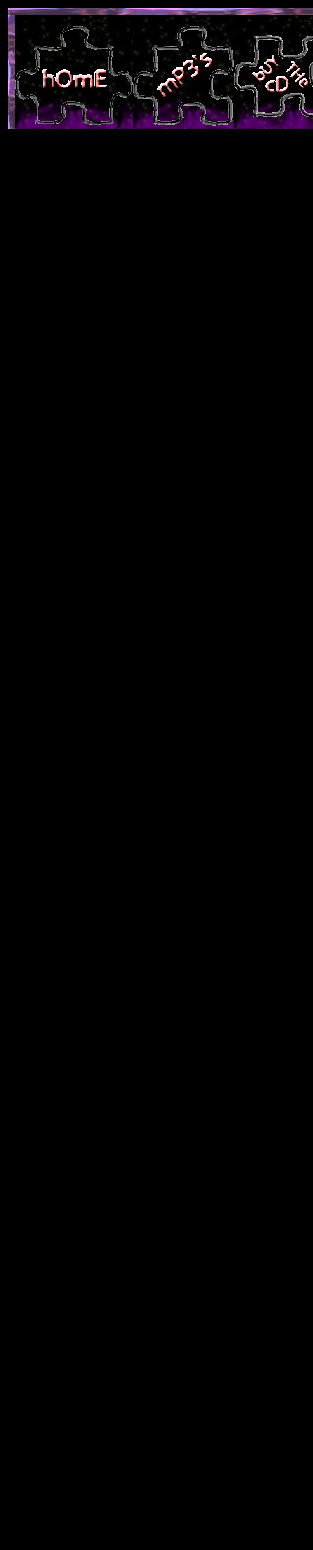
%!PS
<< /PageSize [313 1550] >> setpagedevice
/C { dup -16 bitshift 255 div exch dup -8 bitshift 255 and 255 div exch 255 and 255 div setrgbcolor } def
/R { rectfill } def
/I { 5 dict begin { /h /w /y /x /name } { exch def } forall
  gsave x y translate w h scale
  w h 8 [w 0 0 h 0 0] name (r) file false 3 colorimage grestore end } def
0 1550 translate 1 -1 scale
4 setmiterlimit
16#000000 C
0 0 313 1550 R
(1.rgb) 8 8 305 7 I
(2.rgb) 8 15 7 114 I
(3.rgb) 23 15 290 7 I
(4.rgb) 15 22 118 107 I
(5.rgb) 15 26 118 99 I
(6.rgb) 133 22 101 107 I
(7.rgb) 133 26 101 100 I
(8.rgb) 234 22 79 107 I
(9.rgb) 234 35 79 82 I
showpage
